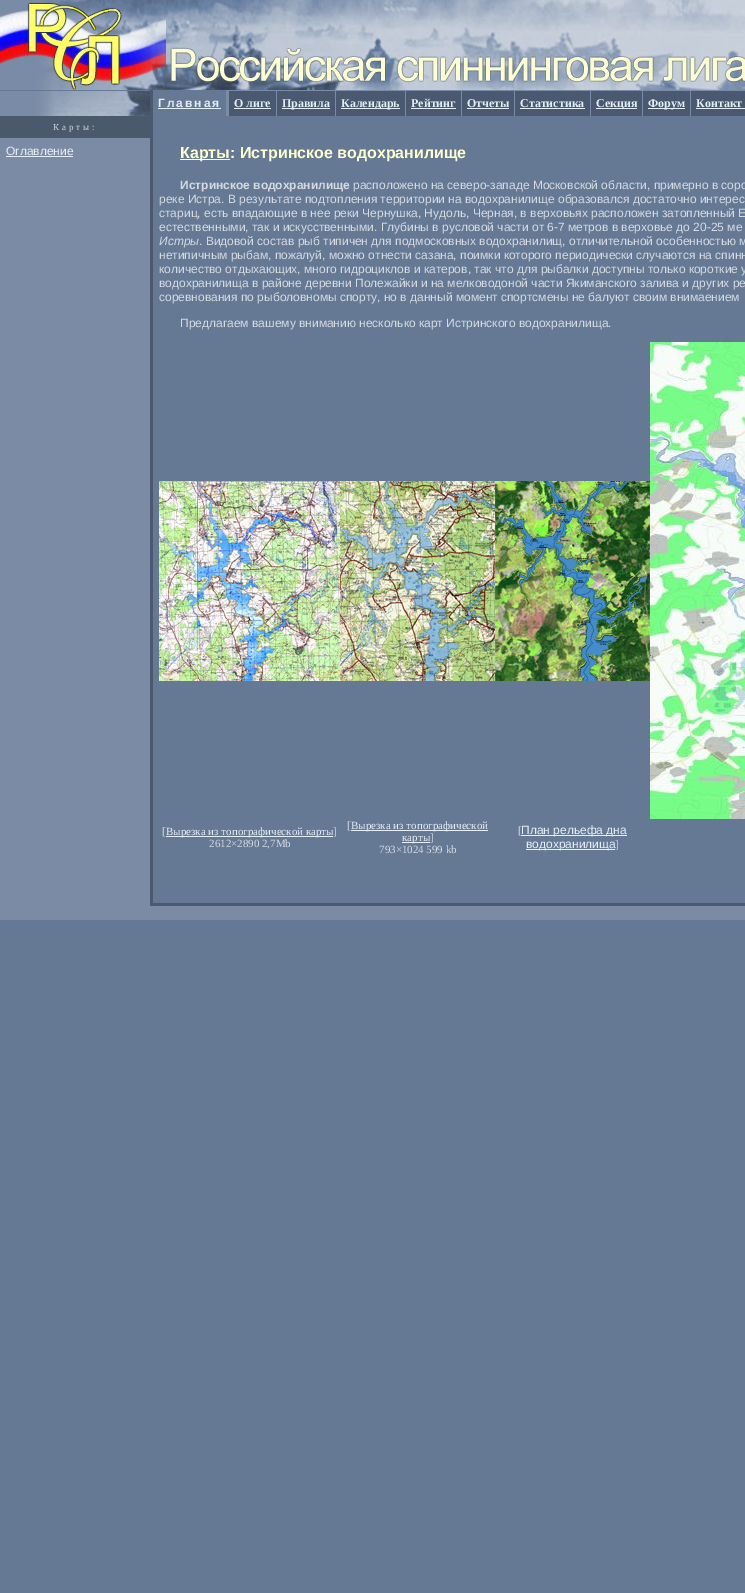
%!PS
<< /PageSize [745 1593] >> setpagedevice
/m/moveto load def
/C { dup -16 bitshift 255 div exch dup -8 bitshift 255 and 255 div exch 255 and 255 div setrgbcolor } def
/F { [ exch dup neg 0 0 3 -1 roll 0 0 ] selectfont } def
/T { moveto show } def
/R { rectfill } def
/I { 5 dict begin { /h /w /y /x /name } { exch def } forall
  gsave x y translate w h scale
  w h 8 [w 0 0 h 0 0] name (r) file false 3 colorimage grestore end } def
0 1593 translate 1 -1 scale
4 setmiterlimit
16#657995 C
0 0 745 1593 R
(1.rgb) 0 0 150 90 I
(2.rgb) 150 0 595 90 I
(3.rgb) 0 91 150 25 I
16#798BA6 C
226 90 3 26 R
16#4A596F C
150 90 3 48 R
/LiberationSans-Bold 12 F
16#E5EDF7 C
158 107 m 2 0 (Главная) ashow
158 108 63 1 R
16#4A596F C
229 91 47 25 R
16#798BA6 C
229 90 516 1 R
276 90 1 26 R
/LiberationSerif-Bold 12 F
16#E5EDF7 C
(О лиге) 234 107 T
234 108 37 1 R
16#4A596F C
277 91 58 25 R
16#798BA6 C
335 90 1 26 R
16#E5EDF7 C
282 108 48 1 R
(Правила) 282 107 T
16#4A596F C
336 91 69 25 R
16#798BA6 C
405 90 1 26 R
16#E5EDF7 C
341 108 59 1 R
(Календарь) 341 107 T
16#4A596F C
406 91 55 25 R
16#798BA6 C
461 90 1 26 R
16#E5EDF7 C
(Рейтинг) 411 107 T
411 108 45 1 R
16#4A596F C
462 91 52 25 R
16#798BA6 C
514 90 1 26 R
16#E5EDF7 C
(Отчеты) 467 107 T
467 108 42 1 R
16#4A596F C
515 91 75 25 R
16#798BA6 C
590 90 1 26 R
16#E5EDF7 C
(Статистика) 520 107 T
520 108 65 1 R
16#4A596F C
591 91 51 25 R
16#798BA6 C
642 90 1 26 R
16#E5EDF7 C
596 108 41 1 R
(Секция) 596 107 T
16#4A596F C
643 91 47 25 R
16#798BA6 C
690 90 1 26 R
16#E5EDF7 C
648 108 37 1 R
(Форум) 648 107 T
16#4A596F C
691 91 54 25 R
16#E5EDF7 C
(Контакт) 696 107 T
696 108 49 1 R
16#4A596B C
0 116 150 22 R
/LiberationSerif-Regular 9 F
16#D5DAE1 C
53 130 m 3 0 (Карты:) ashow
16#7B8AA5 C
0 138 150 782 R
/LiberationSans-Regular 12 F
16#E5EDF7 C
(Оглавление) 6 155 T
6 156 67 1 R
16#4A596F C
150 903 595 3 R
150 138 3 768 R
16#FFFFCE C
180 159 50 1 R
/LiberationSans-Bold 16 F
(Карты: Истринское водохранилище) 180 158 T
/LiberationSans-Bold 12 F
16#D5DAE1 C
(Истринское водохранилище) 180 189 T
/LiberationSans-Regular 12 F
(расположено на северо-западе Московской области, примерно в соро) 353 189 T
(реке Истра. В результате подтопления территории на водохранилище образовался достаточно интерес) 159 203 T
(стариц, есть впадающие в нее реки Чернушка, Нудоль, Черная, в верховьях расположен затопленный Е) 159 217 T
(естественными, так и искусственными. Глубины в русловой части от 6-7 метров в верховье до 20-25 ме) 159 231 T
/LiberationSans-Italic 12 F
(Истры) 159 245 T
/LiberationSans-Regular 12 F
(. Видовой состав рыб типичен для подмосковных водохранилищ, отличительной особенностью м) 199 245 T
(нетипичным рыбам, пожалуй, можно отнести сазана, поимки которого периодически случаются на спинн) 159 259 T
(количество отдыхающих, много гидроциклов и катеров, так что для рыбалки доступны только короткие у) 159 273 T
(водохранилища в районе деревни Полежайки и на мелководоной части Якиманского залива и других ре) 159 287 T
(соревнования по рыболовномы спорту, но в данный момент спортсмены не балуют своим внимаением) 159 301 T
(Предлагаем вашему вниманию несколько карт Истринского водохранилища.) 180 327 T
(4.rgb) 159 481 181 200 I
(5.rgb) 340 481 155 200 I
(6.rgb) 495 481 155 200 I
(7.rgb) 650 342 95 477 I
/LiberationSerif-Regular 11 F
([) 162 835 T
16#E5EDF7 C
166 836 167 1 R
(Вырезка из топографической карты) 166 835 T
16#D5DAE1 C
(]) 333 835 T
(2612×2890 2,7Mb) 209 847 T
([) 347 829 T
16#E5EDF7 C
351 830 137 1 R
(Вырезка из топографической) 351 829 T
402 842 28 1 R
(карты) 402 841 T
16#D5DAE1 C
(]) 430 841 T
(793×1024 599 kb) 379 853 T
([) 518 834 T
16#E5EDF7 C
521 835 106 1 R
/LiberationSans-Regular 12 F
(План рельефа дна) 521 834 T
526 849 89 1 R
(водохранилища) 526 848 T
/LiberationSerif-Regular 11 F
16#D5DAE1 C
(]) 615 848 T
16#7B8AA5 C
150 906 595 14 R
showpage
